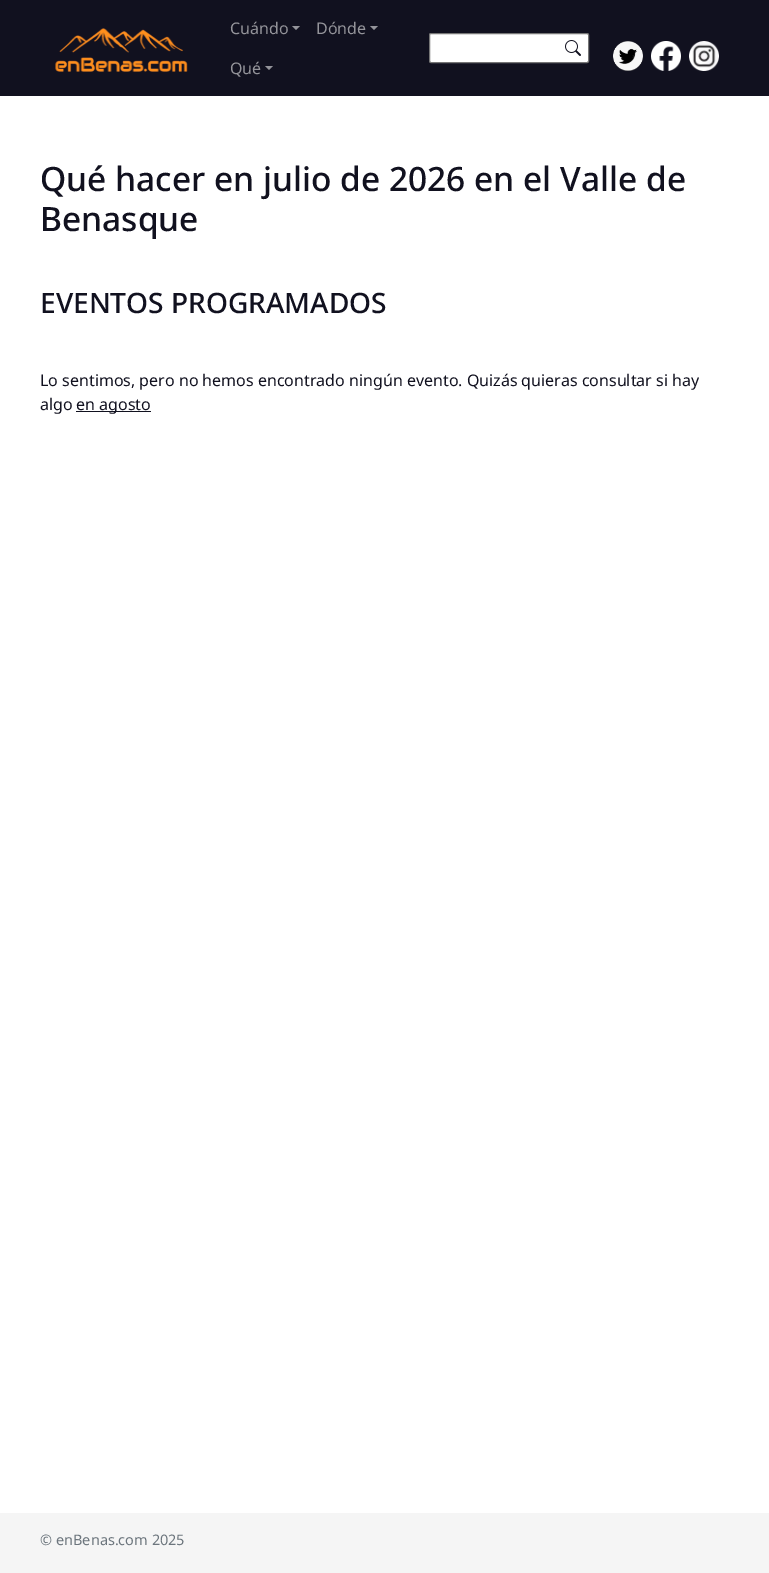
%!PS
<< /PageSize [769 1573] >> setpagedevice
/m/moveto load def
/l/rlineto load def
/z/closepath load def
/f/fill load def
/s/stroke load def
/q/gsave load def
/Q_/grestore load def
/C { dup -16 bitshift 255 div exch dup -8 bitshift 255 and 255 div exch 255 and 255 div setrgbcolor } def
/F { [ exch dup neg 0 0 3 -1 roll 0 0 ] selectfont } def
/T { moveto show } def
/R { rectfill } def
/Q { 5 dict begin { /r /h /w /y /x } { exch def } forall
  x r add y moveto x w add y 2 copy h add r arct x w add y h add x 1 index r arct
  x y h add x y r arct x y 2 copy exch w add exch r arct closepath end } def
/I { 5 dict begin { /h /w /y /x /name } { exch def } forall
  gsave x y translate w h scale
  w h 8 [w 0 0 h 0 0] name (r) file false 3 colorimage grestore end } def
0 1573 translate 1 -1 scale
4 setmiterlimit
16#FFFFFF C
0 0 769 1573 R
16#11111F C
0 0 769 96 R
(1.rgb) 55 28 133 44 I
/NotoSans-Regular 16 F
16#94949A C
(Cuándo) 230 34 T
292 26 m 8 0 l -4 4 l z f
(Dónde) 316 34 T
370 26 m 8 0 l -4 4 l z f
(Qué) 230 74 T
265 66 m 8 0 l -4 4 l z f
16#FFFFFF C
429.5 33.5 159 29 1.5 Q q f Q_
16#767676 C
s
(2.rgb) 565 40 16 16 I
(3.rgb) 613 41 30 30 I
(4.rgb) 651 41 30 30 I
(5.rgb) 689 41 30 30 I
/NotoSans-Medium 33.5 F
16#11111F C
(Qué hacer en julio de 2026 en el Valle de) 40 191 T
(Benasque) 40 231 T
/NotoSans-Medium 28.1 F
(EVENTOS PROGRAMADOS) 40 313 T
/NotoSans-Regular 16 F
(Lo sentimos, pero no hemos encontrado ningún evento. Quizás quieras consultar si hay) 40 386 T
(algo) 40 410 T
76 411 75 1 R
(en agosto) 76 410 T
16#F5F5F5 C
0 1513 769 60 R
/NotoSans-Regular 14.5 F
16#6C757D C
(© enBenas.com 2025) 40 1545 T
showpage
